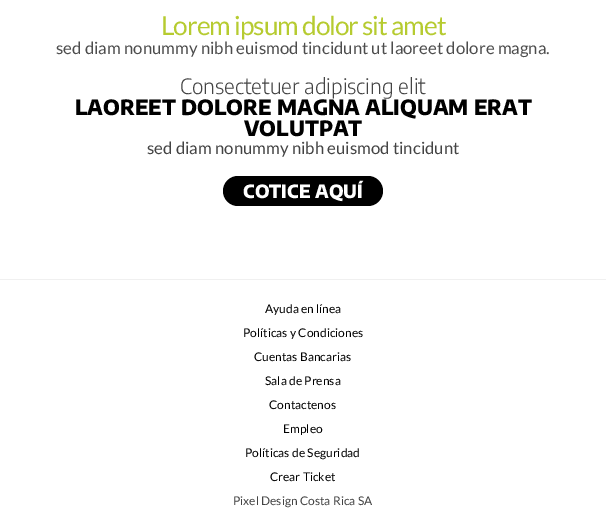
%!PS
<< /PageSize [606 524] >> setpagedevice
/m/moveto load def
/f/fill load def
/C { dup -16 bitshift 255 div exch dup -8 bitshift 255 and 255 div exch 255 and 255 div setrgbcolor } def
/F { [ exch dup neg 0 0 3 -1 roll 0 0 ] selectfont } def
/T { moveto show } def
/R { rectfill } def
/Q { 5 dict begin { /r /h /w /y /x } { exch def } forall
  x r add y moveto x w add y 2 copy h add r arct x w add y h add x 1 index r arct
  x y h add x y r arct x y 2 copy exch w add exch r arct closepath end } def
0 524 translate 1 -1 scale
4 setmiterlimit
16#FFFFFF C
0 0 606 524 R
/Lato-Regular 26.25 F
16#B6CB30 C
161 35 m -1 0 (Lorem ipsum dolor sit amet) ashow
/Lato-Regular 16.8 F
16#4D4D4D C
(sed diam nonummy nibh euismod tincidunt ut laoreet dolore magna.) 56 54 T
/EncodeSans-Light 21 F
16#444444 C
(Consectetuer adipiscing elit) 180 94 T
/EncodeSans-ExtraBold 21 F
16#000000 C
(LAOREET DOLORE MAGNA ALIQUAM ERAT) 75 115 T
(VOLUTPAT) 244 136 T
/Lato-Regular 16.8 F
16#444444 C
(sed diam nonummy nibh euismod tincidunt) 147 154 T
16#000000 C
223 176 160 30 15 Q f
/EncodeSans-ExtraBold 18.25 F
16#FFFFFF C
(COTICE AQUÍ) 243 198 T
16#F0F0F0 C
0 279 606 1 R
/Lato-Regular 12 F
16#000000 C
(Ayuda en línea) 265 313 T
(Políticas y Condiciones) 243 337 T
(Cuentas Bancarias) 254 361 T
(Sala de Prensa) 265 385 T
(Contactenos) 269 409 T
(Empleo) 283 433 T
(Políticas de Seguridad) 245 457 T
(Crear Ticket) 270 481 T
16#444444 C
(Pixel Design Costa Rica SA) 233 505 T
showpage
